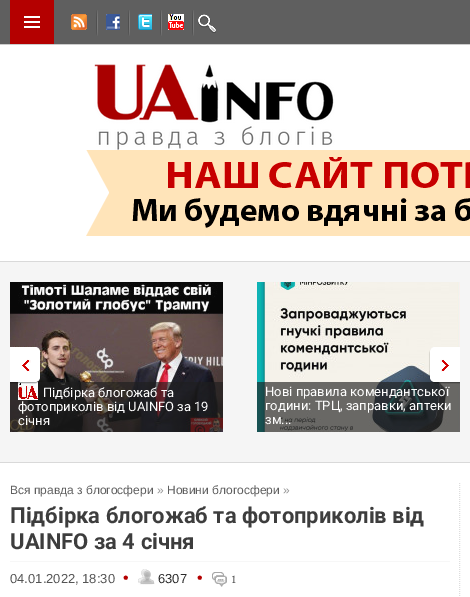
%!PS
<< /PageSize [470 597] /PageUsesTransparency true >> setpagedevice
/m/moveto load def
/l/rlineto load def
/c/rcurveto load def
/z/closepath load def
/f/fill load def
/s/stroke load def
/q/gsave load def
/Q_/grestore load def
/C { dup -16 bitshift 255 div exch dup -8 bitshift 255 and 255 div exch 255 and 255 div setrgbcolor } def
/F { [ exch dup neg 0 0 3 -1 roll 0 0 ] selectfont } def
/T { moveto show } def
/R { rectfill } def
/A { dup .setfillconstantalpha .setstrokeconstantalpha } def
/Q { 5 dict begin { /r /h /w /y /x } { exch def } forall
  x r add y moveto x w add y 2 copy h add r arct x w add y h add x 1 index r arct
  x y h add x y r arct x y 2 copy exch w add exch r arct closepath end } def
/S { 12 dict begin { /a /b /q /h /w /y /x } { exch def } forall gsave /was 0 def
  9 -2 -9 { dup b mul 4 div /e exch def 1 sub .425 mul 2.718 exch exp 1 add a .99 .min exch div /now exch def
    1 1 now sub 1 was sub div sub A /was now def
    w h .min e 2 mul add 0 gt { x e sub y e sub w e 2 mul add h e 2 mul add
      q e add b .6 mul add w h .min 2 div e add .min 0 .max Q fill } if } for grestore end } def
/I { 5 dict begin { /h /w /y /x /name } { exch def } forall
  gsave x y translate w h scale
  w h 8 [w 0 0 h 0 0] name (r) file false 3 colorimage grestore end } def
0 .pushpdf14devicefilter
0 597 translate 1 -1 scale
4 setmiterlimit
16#FFFFFF C
0 0 470 597 R
16#CCCCCC C
0 44 470 1 R
16#5F5F5F C
0 0 470 44 R
16#B40000 C
10 0 44 44 R
(1.rgb) 24 16 16 12 I
(2.rgb) 71 14 16 16 I
(3.rgb) 96 10 2 26 I
(4.rgb) 106 14 14 16 I
(3.rgb) 128 10 2 26 I
(5.rgb) 138 14 14 16 I
(3.rgb) 160 10 2 26 I
(6.rgb) 168 14 16 16 I
(3.rgb) 192 10 2 26 I
(7.rgb) 197 14 19 19 I
(8.rgb) 94 64 241 86 I
(9.rgb) 86 150 384 86 I
16#F5F5F5 C
0 262 470 200 R
16#D9D9D9 C
0 261 470 1 R
0 462 470 1 R
(12.rgb) 10 282 213 150 I
0.65 A
16#1E1E1E C
10 382 213 50 R
1 A
(13.rgb) 18 382 20 18 I
q
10 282 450 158 rectclip
16#000000 C
0 348 40 35 5 .5 .4 S
Q_
16#FFFFFF C
10 347 m 25 0 l 3 0 5 2 5 5 c 0 25 l 0 3 -2 5 -5 5 c -25 0 l z f
(10.rgb) 22 359 9 13 I
(14.rgb) 257 282 203 150 I
0.65 A
16#1E1E1E C
257 382 203 50 R
q
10 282 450 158 rectclip
1 A
16#000000 C
430 348 40 35 5 .5 .4 S
Q_
1 A
16#FFFFFF C
435 347 m 25 0 l 0 35 l -25 0 l -3 0 -5 -2 -5 -5 c 0 -25 l 0 -3 2 -5 5 -5 c z f
(11.rgb) 440 359 9 13 I
/Roboto-Regular 13 F
(Підбірка блогожаб та) 43 397 T
(фотоприколів від UAINFO за 19) 18 411 T
(січня) 18 425 T
(Нові правила комендантської) 265 396 T
(години: ТРЦ, заправки, аптеки) 265 410 T
(зм...) 265 424 T
16#DDDDDD C
[1 1] 0 setdash
459.5 483 m 0 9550 l s
/LiberationSans-Regular 12 F
16#5F5F5F C
(Вся правда з блогосфери) 10 494 T
16#969696 C
(») 157 494 T
16#5F5F5F C
(Новини блогосфери) 167 494 T
16#969696 C
(») 283 494 T
/Roboto-Bold 22 F
16#3D3D3D C
(Підбірка блогожаб та фотоприколів від) 10 523 T
(UAINFO за 4 січня) 10 549 T
16#F7F7F7 C
10 561 440 1 R
/LiberationSans-Regular 13 F
16#545454 C
(04.01.2022, 18:30) 10 583 T
/LiberationSans-Regular 16 F
16#B40000 C
(•) 123 583 T
(15.rgb) 138 569 17 16 I
/LiberationSans-Regular 13 F
16#2A2A2A C
(6307) 158 583 T
/LiberationSans-Regular 16 F
16#B40000 C
(•) 197 583 T
(16.rgb) 212 572 15 15 I
/LiberationSerif-Regular 11 F
16#2A2A2A C
(1) 231 583 T
.poppdf14devicefilter showpage
